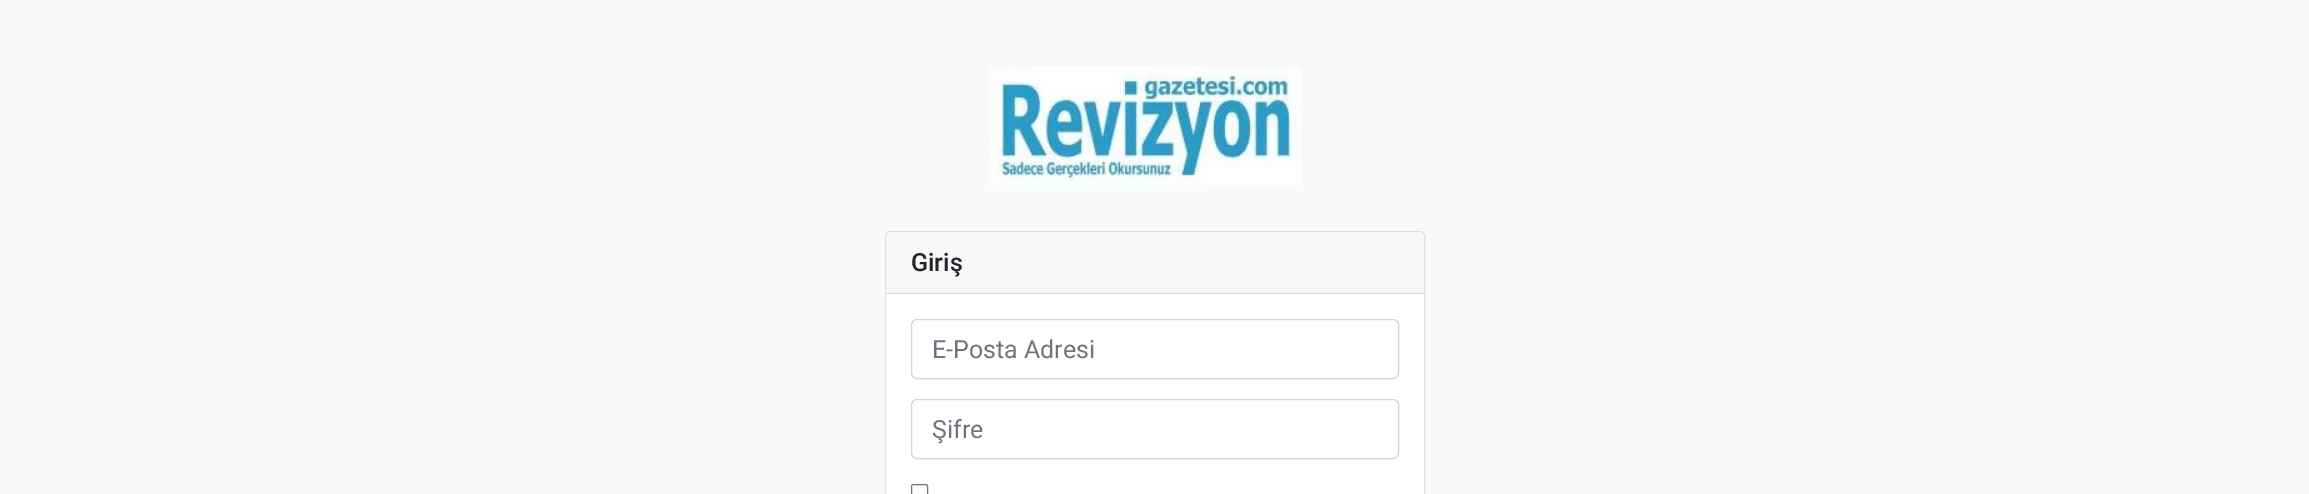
%!PS
<< /PageSize [2309 494] /PageUsesTransparency true >> setpagedevice
/m/moveto load def
/l/rlineto load def
/c/rcurveto load def
/z/closepath load def
/f/fill load def
/s/stroke load def
/C { dup -16 bitshift 255 div exch dup -8 bitshift 255 and 255 div exch 255 and 255 div setrgbcolor } def
/F { [ exch dup neg 0 0 3 -1 roll 0 0 ] selectfont } def
/T { moveto show } def
/R { rectfill } def
/A { dup .setfillconstantalpha .setstrokeconstantalpha } def
/Q { 5 dict begin { /r /h /w /y /x } { exch def } forall
  x r add y moveto x w add y 2 copy h add r arct x w add y h add x 1 index r arct
  x y h add x y r arct x y 2 copy exch w add exch r arct closepath end } def
/I { 5 dict begin { /h /w /y /x /name } { exch def } forall
  gsave x y translate w h scale
  w h 8 [w 0 0 h 0 0] name (r) file false 3 colorimage grestore end } def
0 .pushpdf14devicefilter
0 494 translate 1 -1 scale
4 setmiterlimit
16#F8F9FA C
0 0 2309 494 R
(1.rgb) 989 66 312 119 I
16#FFFFFF C
885 231 540 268 5 Q f
0.12 A
16#000000 C
885.5 231.5 539 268 4.5 Q s
1 A
16#F7F7F7 C
890 233 m 530 0 l 2 0 4 2 4 4 c 0 57 l -538 0 l 0 -57 l 0 -2 2 -4 4 -4 c z f
16#D8D8D8 C
886 293 538 1 R
/Roboto-Medium 25 F
16#212529 C
(Giriş) 911 271 T
16#CED4DA C
911.5 319.5 487 59 5.5 Q s
/Roboto-Regular 25 F
16#6C757D C
(E-Posta Adresi) 932 358 T
16#CED4DA C
911.5 399.5 487 59 5.5 Q s
16#6C757D C
(Şifre) 932 438 T
16#767676 C
911.5 484.5 16 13 2 Q s
.poppdf14devicefilter showpage
